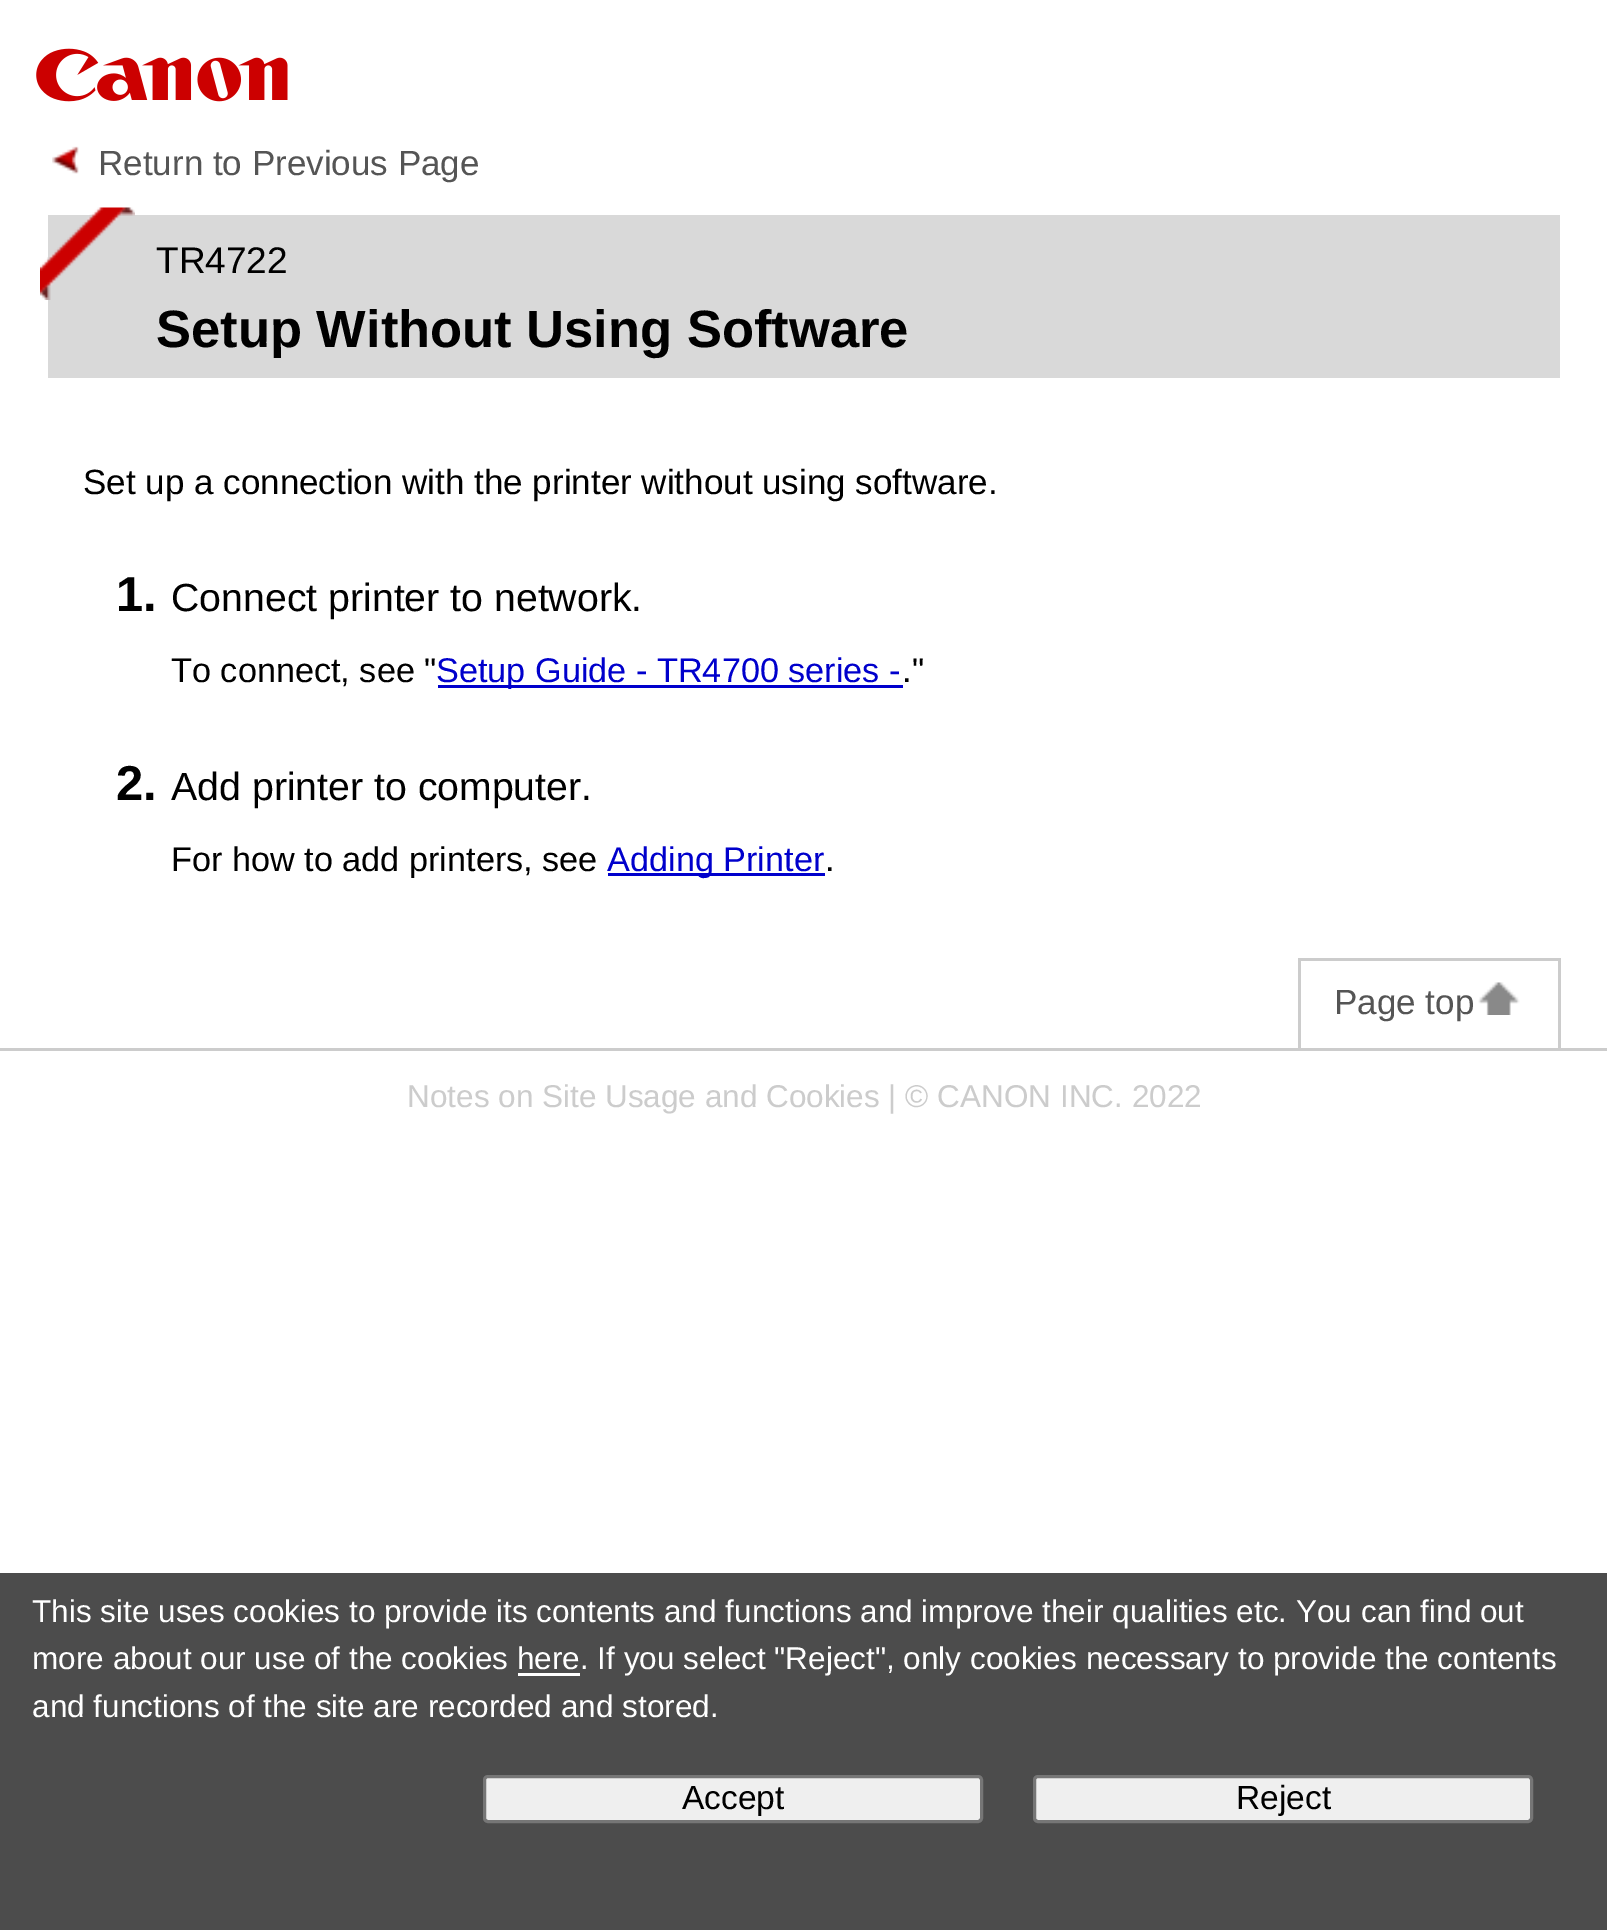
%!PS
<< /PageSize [1607 1930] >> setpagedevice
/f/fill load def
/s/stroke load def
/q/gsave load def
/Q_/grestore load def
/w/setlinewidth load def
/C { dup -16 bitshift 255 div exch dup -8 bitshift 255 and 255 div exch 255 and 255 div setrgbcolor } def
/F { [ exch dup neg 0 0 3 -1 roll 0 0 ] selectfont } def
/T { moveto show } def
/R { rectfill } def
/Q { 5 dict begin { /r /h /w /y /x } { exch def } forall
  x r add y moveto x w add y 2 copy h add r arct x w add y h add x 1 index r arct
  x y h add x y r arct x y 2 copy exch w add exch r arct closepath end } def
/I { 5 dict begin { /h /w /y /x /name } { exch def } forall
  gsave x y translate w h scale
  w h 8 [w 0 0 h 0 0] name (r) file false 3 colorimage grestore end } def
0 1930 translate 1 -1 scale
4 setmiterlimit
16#FFFFFF C
0 0 1607 1930 R
(1.rgb) 36 48 252 54 I
(2.rgb) 52 146 27 28 I
/LiberationSans-Regular 35 F
16#555555 C
(Return to Previous Page) 98 175 T
16#D9D9D9 C
48 215 1512 163 R
(3.rgb) 40 207 95 93 I
/LiberationSans-Regular 37 F
16#000000 C
(TR4722) 156 273 T
/LiberationSans-Bold 52.5 F
(Setup Without Using Software) 156 347 T
/LiberationSans-Regular 35 F
(Set up a connection with the printer without using software.) 83 494 T
/LiberationSans-Bold 49 F
(1.) 116 611 T
/LiberationSans-Regular 39.25 F
(Connect printer to network.) 171 611 T
/LiberationSans-Regular 34.25 F
(To connect, see ") 171 682 T
16#0000CC C
438 685 465 3 R
(Setup Guide - TR4700 series -) 436 682 T
16#000000 C
(.") 902 682 T
/LiberationSans-Bold 49 F
(2.) 116 800 T
/LiberationSans-Regular 39.25 F
(Add printer to computer.) 171 800 T
/LiberationSans-Regular 34.25 F
(For how to add printers, see) 171 871 T
16#0000CC C
608 873 217 3 R
(Adding Printer) 607 871 T
16#000000 C
(.) 825 871 T
16#CCCCCC C
0 1048 1607 3 R
1298 958 262 3 R
1558 958 3 90 R
1298 958 3 90 R
/LiberationSans-Regular 35 F
16#555555 C
(Page top) 1334 1014 T
(4.rgb) 1478 982 42 33 I
/LiberationSans-Regular 31.5 F
16#CCCCCC C
(Notes on Site Usage and Cookies | © CANON INC. 2022) 407 1107 T
16#4C4C4C C
0 1573 1607 357 R
16#FFFFFF C
(This site uses cookies to provide its contents and functions and improve their qualities etc. You can find out) 32 1622 T
(more about our use of the cookies here. If you select "Reject", only cookies necessary to provide the contents) 32 1669 T
518 1673 62 3 R
(and functions of the site are recorded and stored.) 32 1717 T
16#EFEFEF C
484.5 1776.5 497 45 3.5 Q q f Q_
16#767676 C
3 w
s
/LiberationSans-Regular 33.5 F
16#000000 C
(Accept) 682 1809 T
16#EFEFEF C
1034.5 1776.5 497 45 3.5 Q q f Q_
16#767676 C
s
16#000000 C
(Reject) 1236 1809 T
showpage
